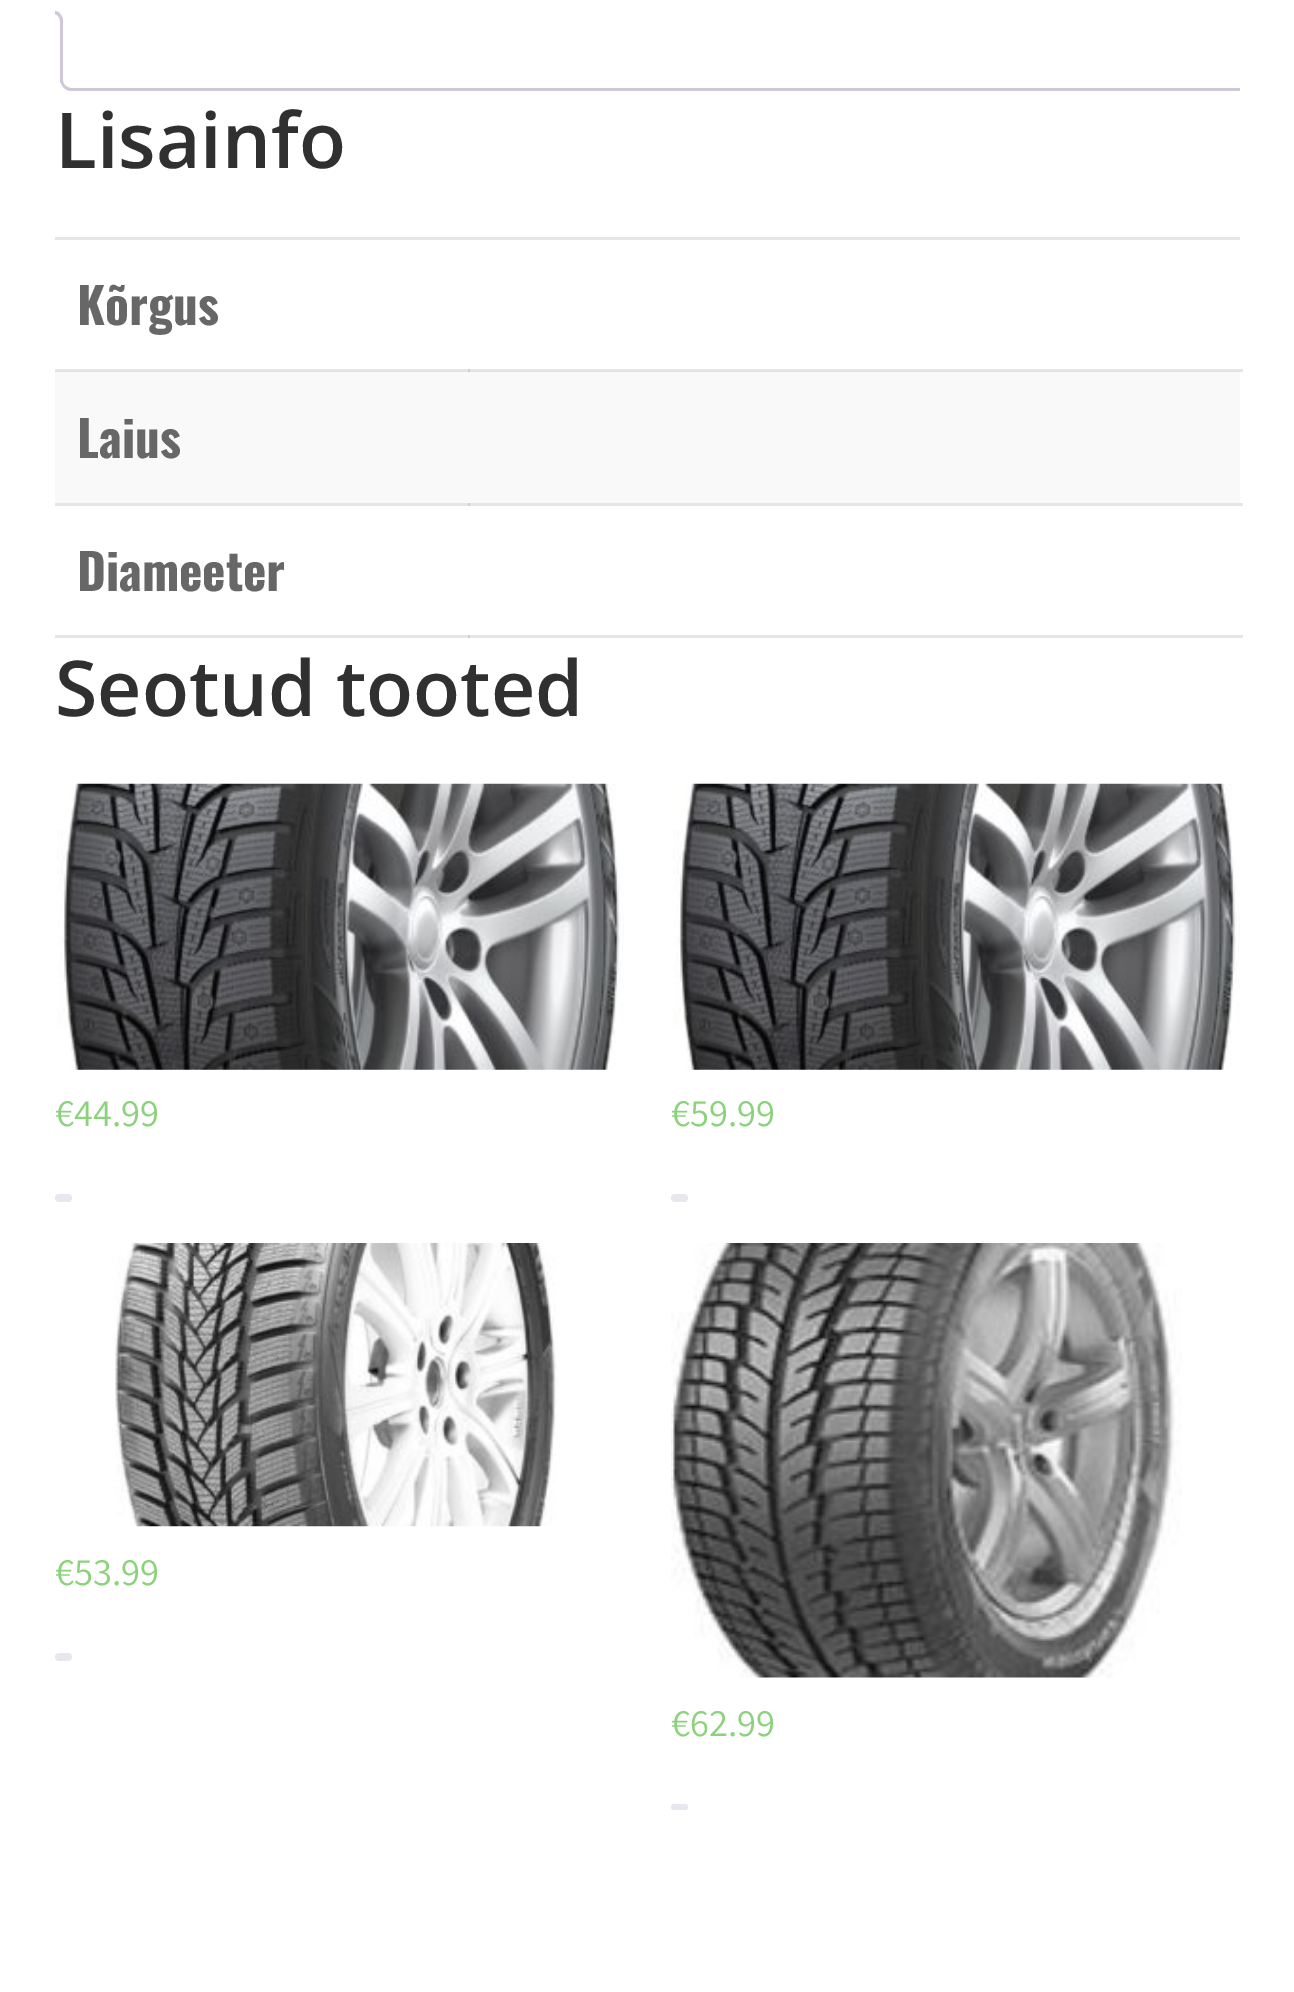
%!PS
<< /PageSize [1294 1992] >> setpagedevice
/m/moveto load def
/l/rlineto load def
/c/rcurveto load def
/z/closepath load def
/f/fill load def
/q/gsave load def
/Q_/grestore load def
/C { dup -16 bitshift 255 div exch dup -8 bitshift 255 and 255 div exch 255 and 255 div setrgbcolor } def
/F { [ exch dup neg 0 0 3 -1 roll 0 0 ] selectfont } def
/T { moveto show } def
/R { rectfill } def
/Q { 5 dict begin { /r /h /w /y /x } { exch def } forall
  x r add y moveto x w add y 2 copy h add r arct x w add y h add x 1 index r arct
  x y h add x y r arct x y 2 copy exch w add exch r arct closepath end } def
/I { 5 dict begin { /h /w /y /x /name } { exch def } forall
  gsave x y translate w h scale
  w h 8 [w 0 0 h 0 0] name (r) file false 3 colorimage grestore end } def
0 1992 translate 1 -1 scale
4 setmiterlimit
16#FFFFFF C
0 0 1294 1992 R
16#E6E6E6 C
55 369 415 2 R
468 369 775 3 R
16#CFCFCF C
468 369 2 3 R
16#E6E6E6 C
55 503 1188 3 R
55 635 1188 3 R
q
55 11 1185 80 rectclip
16#CFC8D8 C
54 11 m -3 0 -5.5 1 -7 3 c 2 2 l 2.5 -2.5 7 -2.5 9 0 c 2.5 -2 l -1.5 -2 -4 -3 -6.5 -3 c z f
Q_
16#CFC8D8 C
60 14 m 2 2 3 4 3 7 c 0 69 l -3 -2 l 0 -67 l 0 -2 -1 -4 -2 -5 c z f
q
55 11 1185 80 rectclip
16#FFFFFF C
63 91 m -19 0 l 3 -3 l 13 0 l 0 -.5 l z f
Q_
64 88 1176 3 R
q
55 11 1185 80 rectclip
16#FFFFFF C
55 83 m 0 6 2 11.5 9 13 c 5 0 l 0 -5.5 l -4 -1 -7 -4 -8 -7.5 c z f
Q_
60.5 77 m 13.5 0 l 0 14 l -2.5 0 l -6 0 -11 -5 -11 -11 c z 63 77 m 11 0 l 0 11 l -2.5 0 l -4.5 0 -8.5 -3.5 -8.5 -8 c z eofill
/OpenSans-SemiBold 77 F
16#303030 C
(Lisainfo) 55 168 T
16#E6E6E6 C
55 237 1185 3 R
/Oswald-Bold 49.5 F
16#676767 C
(Kõrgus) 77 325 T
16#F9F9F9 C
55 372 1185 131 R
16#E0E0E0 C
55 371 1185 1 R
16#676767 C
(Laius) 77 458 T
16#CACACA C
468 371 2 1 R
16#CFCFCF C
468 503 2 3 R
16#676767 C
(Diameeter) 77 591 T
16#CFCFCF C
468 635 2 3 R
/OpenSans-SemiBold 77 F
16#303030 C
(Seotud tooted) 55 716 T
(1.rgb) 57 783 567 287 I
/Assistant-Regular 38.5 F
16#8BD37B C
(€44.99) 55 1126 T
16#E9E6ED C
55 1194 17 8 4 Q f
(1.rgb) 673 783 567 287 I
16#8BD37B C
(€59.99) 671 1126 T
16#E9E6ED C
671 1194 17 8 4 Q f
(2.rgb) 115 1243 442 284 I
16#8BD37B C
(€53.99) 55 1585 T
16#E9E6ED C
55 1653 17 8 4 Q f
(3.rgb) 671 1243 511 435 I
16#8BD37B C
(€62.99) 671 1736 T
16#E9E6ED C
671 1804 17 6 3 Q f
showpage
